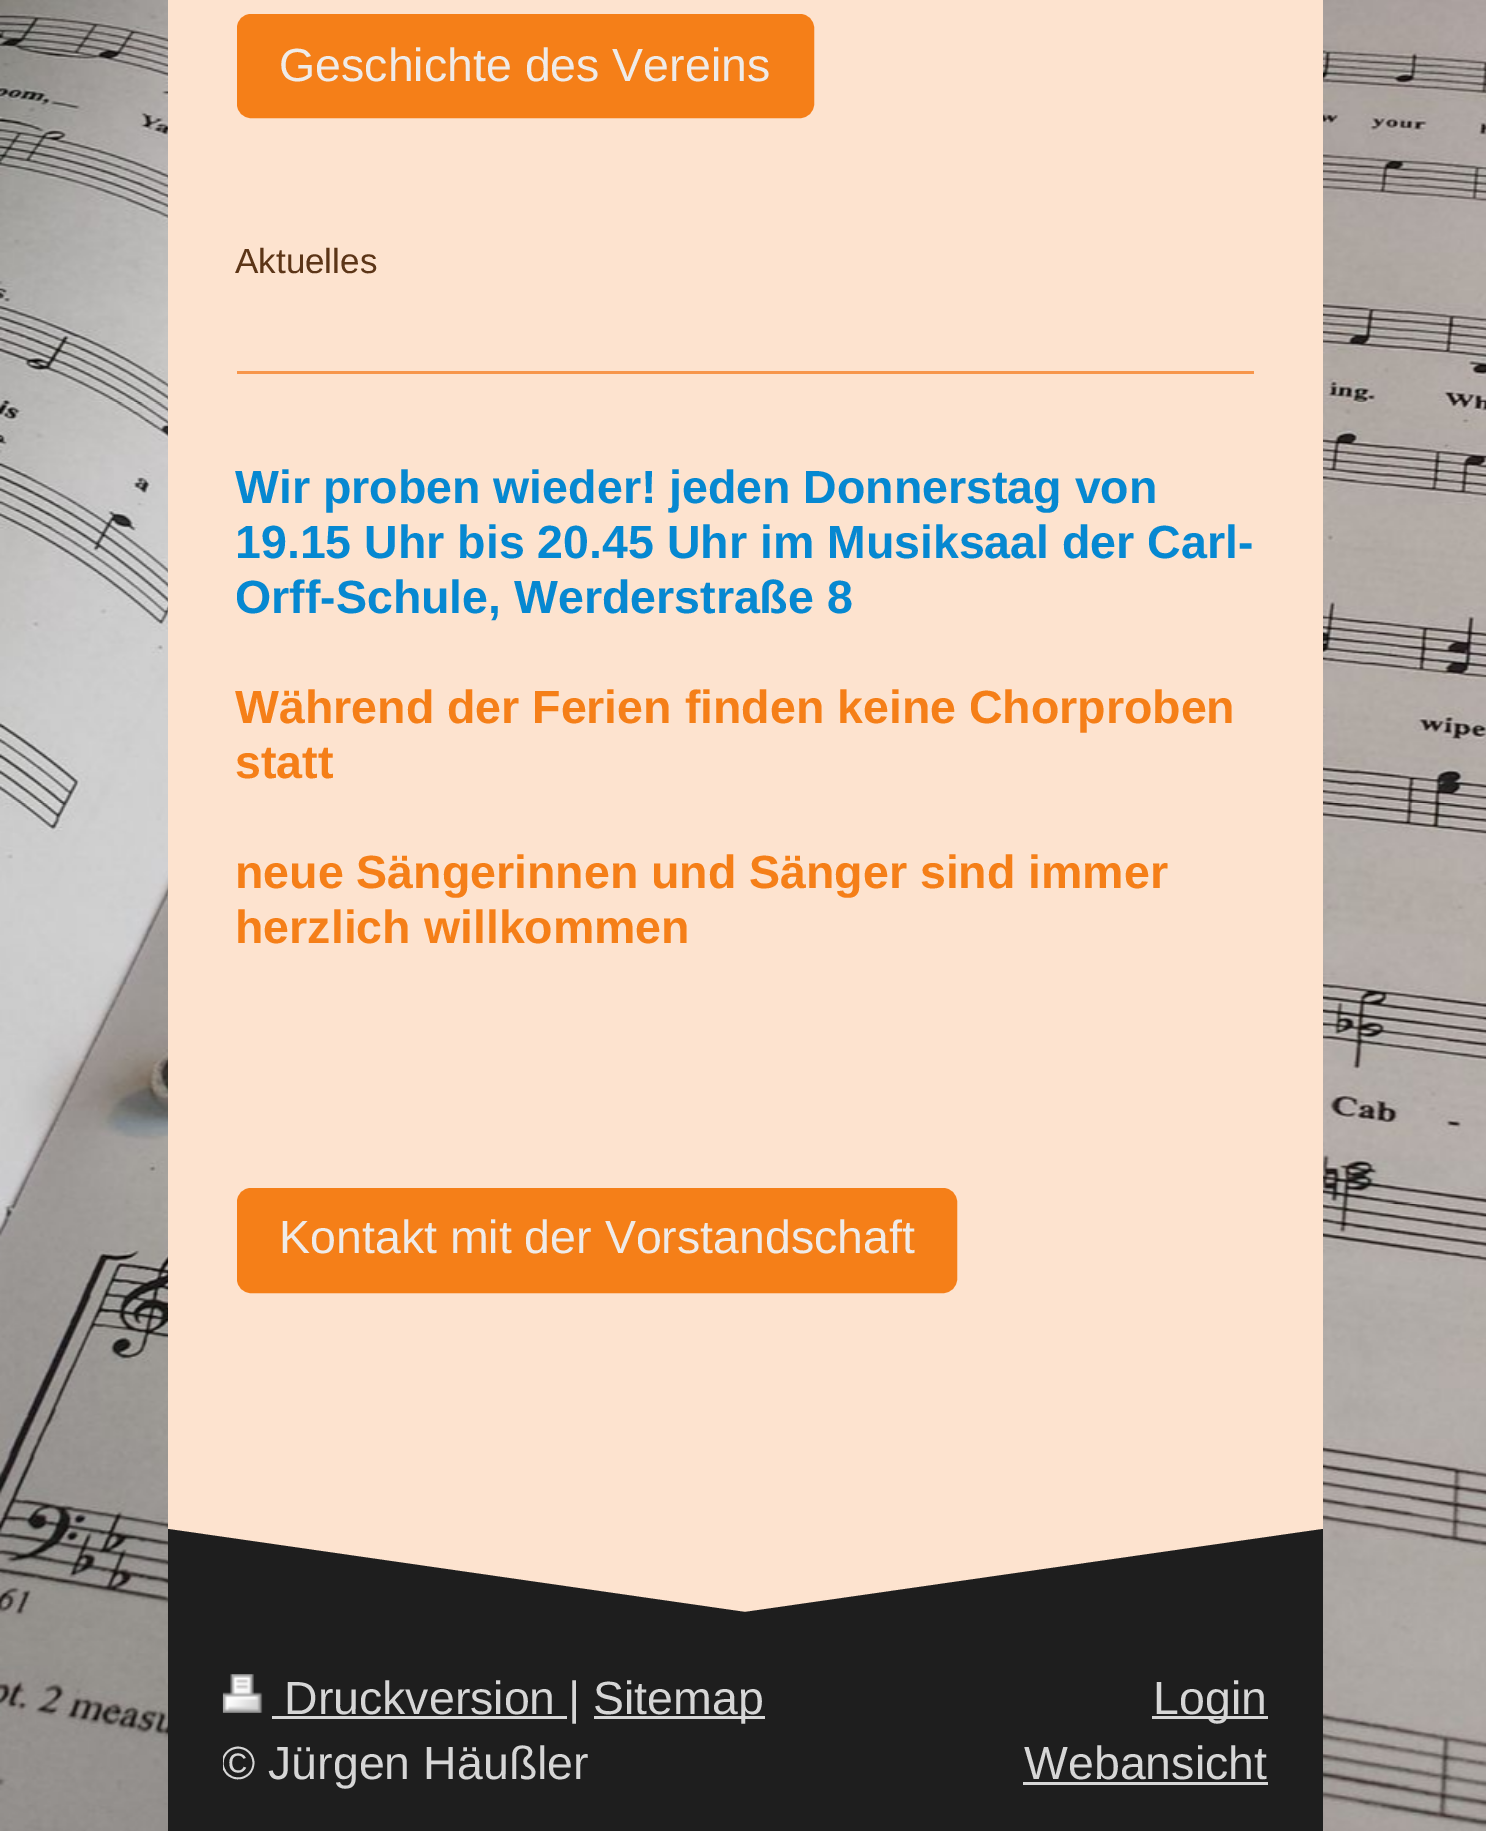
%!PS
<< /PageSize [1486 1831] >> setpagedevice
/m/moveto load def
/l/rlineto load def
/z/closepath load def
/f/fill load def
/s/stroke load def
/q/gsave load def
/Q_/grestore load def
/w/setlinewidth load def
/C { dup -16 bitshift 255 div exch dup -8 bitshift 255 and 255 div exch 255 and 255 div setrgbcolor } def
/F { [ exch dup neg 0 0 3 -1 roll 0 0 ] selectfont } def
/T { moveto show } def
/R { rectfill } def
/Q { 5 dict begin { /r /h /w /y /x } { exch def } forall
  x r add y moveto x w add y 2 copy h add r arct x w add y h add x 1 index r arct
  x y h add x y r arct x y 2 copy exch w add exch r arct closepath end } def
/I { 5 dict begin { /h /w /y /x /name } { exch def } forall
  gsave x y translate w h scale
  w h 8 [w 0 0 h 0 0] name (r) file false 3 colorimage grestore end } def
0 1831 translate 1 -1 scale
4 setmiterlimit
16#FFFFFF C
0 0 1486 1831 R
(1.rgb) 0 0 1486 1831 I
16#FDE3CF C
168 0 1155 1612 R
16#F57F18 C
238.5 15.5 574 101 12.5 Q q f Q_
3 w
s
/LiberationSans-Regular 46.5 F
16#EFEBE8 C
(Geschichte des Vereins) 279 81 T
/LiberationSans-Regular 35 F
16#5C3517 C
(Aktuelles) 235 273 T
16#F7964B C
237 371 1017 3 R
/LiberationSans-Bold 46.5 F
16#0688D1 C
(Wir proben wieder! jeden Donnerstag von) 235 503 T
(19.15 Uhr bis 20.45 Uhr im Musiksaal der Carl-) 235 558 T
(Orff-Schule, Werderstraße 8) 235 613 T
16#F57F18 C
(Während der Ferien finden keine Chorproben) 235 723 T
(statt) 235 778 T
(neue Sängerinnen und Sänger sind immer) 235 888 T
(herzlich willkommen) 235 943 T
238.5 1189.5 717 102 12.5 Q q f Q_
s
/LiberationSans-Regular 46.5 F
16#EFEBE8 C
(Kontakt mit der Vorstandschaft) 279 1253 T
16#1E1E1E C
168 1612 1155 219 R
745 1612 m -577 0 l 0 -83 l z f
1323 1612 m -578 0 l 578 -83 l z f
(2.rgb) 222 1674 41 39 I
16#D6D6D6 C
272 1716 295 3 R
(Druckversion |) 284 1714 T
594 1716 171 3 R
(Sitemap) 593 1714 T
q
223 1667 1045 129 rectclip
(© Jürgen Häußler) 221 1779 T
Q_
1152 1716 116 3 R
(Login) 1153 1714 T
(Webansicht) 1024 1779 T
1023 1782 245 3 R
showpage
